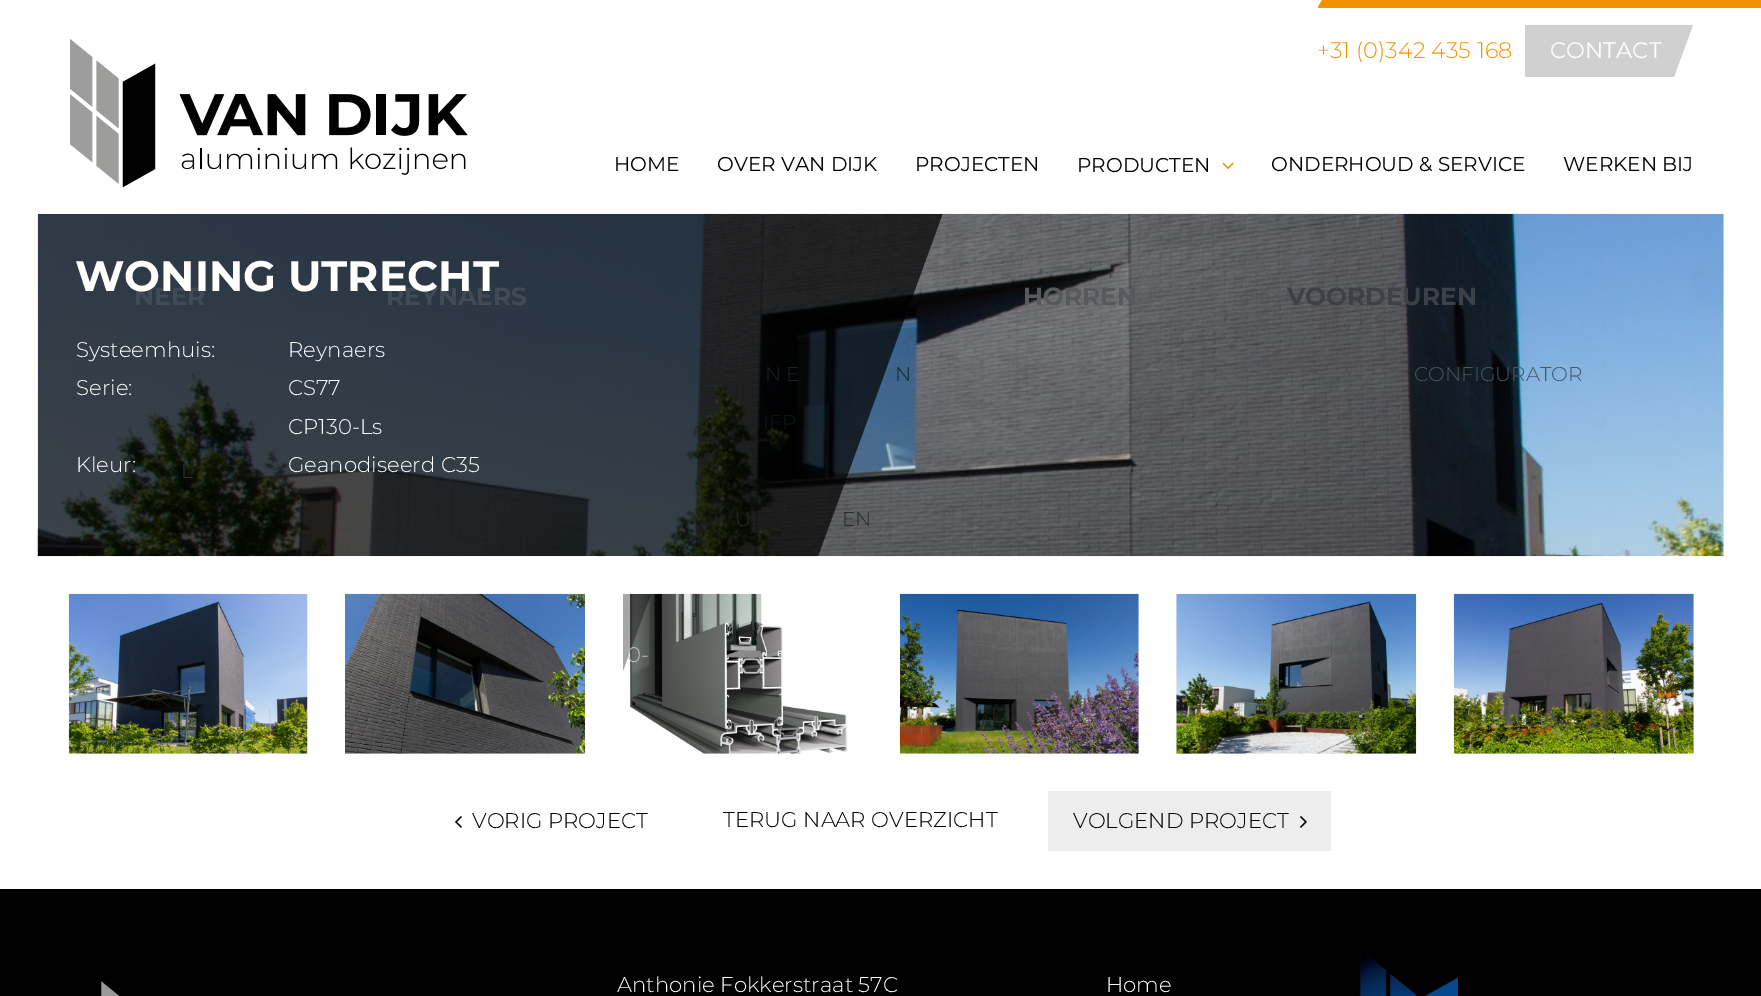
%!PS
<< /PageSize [1761 996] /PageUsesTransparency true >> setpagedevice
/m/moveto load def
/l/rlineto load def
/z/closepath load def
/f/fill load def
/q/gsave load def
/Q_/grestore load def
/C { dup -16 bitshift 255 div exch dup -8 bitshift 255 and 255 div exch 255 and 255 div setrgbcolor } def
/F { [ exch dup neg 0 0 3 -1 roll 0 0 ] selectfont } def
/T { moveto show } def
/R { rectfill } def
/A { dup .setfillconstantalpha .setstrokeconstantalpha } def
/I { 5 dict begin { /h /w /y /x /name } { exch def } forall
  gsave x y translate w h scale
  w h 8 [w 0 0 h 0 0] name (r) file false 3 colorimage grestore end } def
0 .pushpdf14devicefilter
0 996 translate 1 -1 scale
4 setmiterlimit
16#FFFFFF C
0 0 1761 996 R
(1.rgb) 70 39 398 149 I
16#F39200 C
1322 0 m -4 7 l 0 1 l 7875 0 l 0 -8 l z f
/Montserrat-Light 22.5 F
(+31 \(0\)342 435 168) 1317 58 T
16#D0D0D0 C
1525 25 m 0 52 l 149 0 l 19 -52 l z f
/Montserrat-Regular 22.5 F
16#FFFFFF C
(CONTACT) 1550 58 T
/Montserrat-Regular 20 F
16#000000 C
(HOME) 614 171 T
(OVER VAN DIJK) 717 171 T
(PROJECTEN) 915 171 T
(PRODUCTEN) 1077 172 T
(2.rgb) 1222 162 12 8 I
(ONDERHOUD & SERVICE) 1271 171 T
(WERKEN BIJ) 1563 171 T
(3.rgb) 37 213 1687 344 I
q
38 214 1686 342 rectclip
0.7 A
-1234 -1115 m 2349 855 l -469 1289 l -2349 -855 l z f
Q_
/Montserrat-Bold 24.75 F
16#414B56 C
(NEER) 134 305 T
/Montserrat-Light 20 F
16#303733 C
(L) 181 478 T
/Montserrat-Bold 24.75 F
16#414B56 C
(REYNAERS) 386 305 T
16#58595E C
(HORREN) 1023 305 T
16#3C4047 C
(VOORDEUREN) 1287 305 T
/Montserrat-Light 20 F
16#475564 C
(CONFIGURATOR) 1414 381 T
16#18212A C
(N E) 765 381 T
(N) 895 381 T
16#101513 C
(IFP) 763 429 T
16#282929 C
(U) 735 526 T
(EN) 842 526 T
/Montserrat-Bold 42.5 F
16#FFFFFF C
(WONING UTRECHT) 75 291 T
/Montserrat-Light 21.25 F
(Systeemhuis:) 76 357 T
(Reynaers) 288 357 T
(Serie:) 76 395 T
(CS77) 288 395 T
(CP130-Ls) 288 434 T
(Kleur:) 76 472 T
(Geanodiseerd C35) 288 472 T
(4.rgb) 68 593 240 161 I
(5.rgb) 345 593 240 161 I
(6.rgb) 630 593 218 161 I
q
623 594 240 160 rectclip
0.35 A
16#000000 C
-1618 -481 m 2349 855 l -218 599 l -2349 -855 l z f
Q_
16#C0C2C1 C
(0-) 627 662 T
(7.rgb) 900 593 239 161 I
(8.rgb) 1176 593 241 161 I
(9.rgb) 1453 593 241 161 I
(10.rgb) 455 816 7 12 I
16#000000 C
(VORIG PROJECT) 472 828 T
(TERUG NAAR OVERZICHT) 723 827 T
16#EDEDED C
1048 791 283 60 R
16#000000 C
(VOLGEND PROJECT) 1073 828 T
(11.rgb) 1300 816 7 12 I
0 889 1761 107 R
(12.rgb) 101 981 19 15 I
16#FFFFFF C
(Anthonie Fokkerstraat 57C) 617 992 T
(Home) 1106 992 T
(13.rgb) 1360 950 98 46 I
.poppdf14devicefilter showpage
